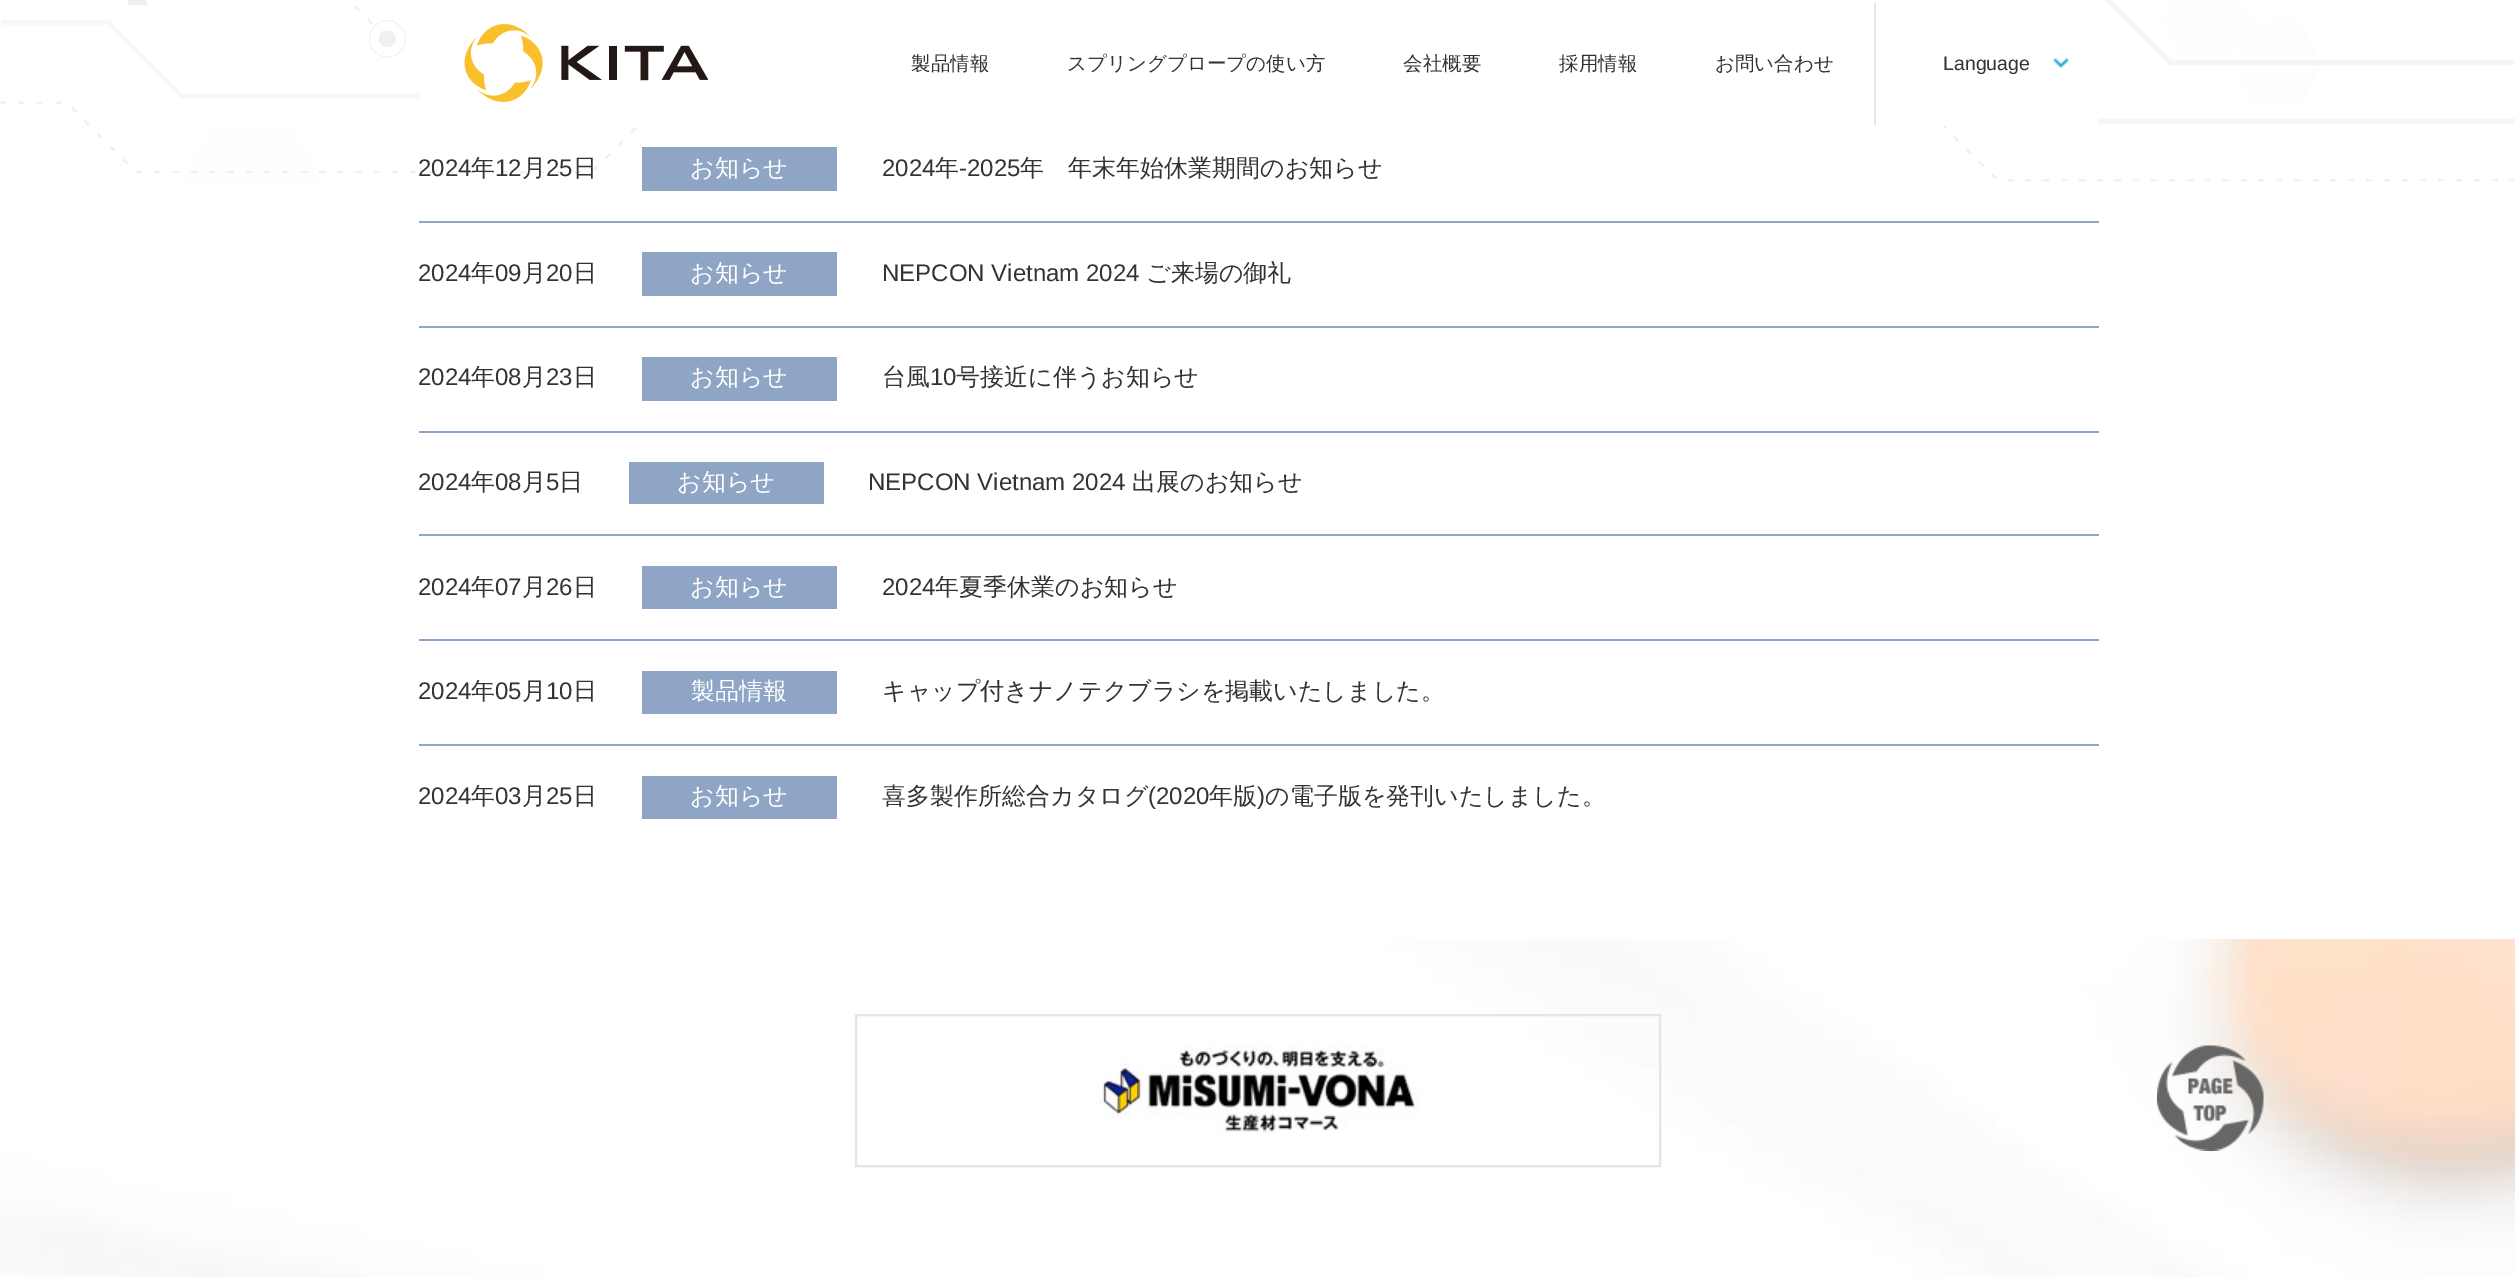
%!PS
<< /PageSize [2515 1277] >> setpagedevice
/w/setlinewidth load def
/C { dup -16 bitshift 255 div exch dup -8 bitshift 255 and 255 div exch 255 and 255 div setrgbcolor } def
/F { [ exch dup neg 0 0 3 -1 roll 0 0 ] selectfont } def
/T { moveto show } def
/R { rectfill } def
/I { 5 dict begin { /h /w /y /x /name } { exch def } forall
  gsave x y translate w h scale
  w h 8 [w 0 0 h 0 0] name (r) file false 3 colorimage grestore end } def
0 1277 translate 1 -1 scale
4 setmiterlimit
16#FFFFFF C
0 0 2515 1277 R
(3.rgb) 0 0 2515 182 I
419 0 1680 126 R
(1.rgb) 464 24 244 78 I
/WenQuanYiZenHei-Medium 19.5 F
16#333333 C
(製品情報) 911 70 T
(スプリングプロープの使い方) 1067 70 T
(会社概要) 1403 70 T
(採用情報) 1559 70 T
(お問い合わせ) 1715 70 T
16#E5E5E5 C
1874 3 2 122 R
(2.rgb) 2053 58 16 10 I
/LiberationSans-Regular 19.5 F
16#333333 C
(Language) 1943 70 T
16#8EA5C5 C
419 221 1680 2 R
/LiberationSans-Regular 24 F
16#333333 C
(2024) 418 176 T
/WenQuanYiZenHei-Medium 24 F
(年) 471 176 T
/LiberationSans-Regular 24 F
(12) 495 176 T
/WenQuanYiZenHei-Medium 24 F
(月) 522 176 T
/LiberationSans-Regular 24 F
(25) 546 176 T
/WenQuanYiZenHei-Medium 24 F
(日) 573 176 T
16#8EA5C5 C
642 147 195 44 R
16#FFFFFF C
(お知らせ) 690 176 T
/LiberationSans-Regular 24 F
16#333333 C
(2024) 882 176 T
/WenQuanYiZenHei-Medium 24 F
(年) 935 176 T
/LiberationSans-Regular 24 F
(-2025) 959 176 T
/WenQuanYiZenHei-Medium 24 F
(年　年末年始休業期間のお知らせ) 1020 176 T
16#8EA5C5 C
419 326 1680 2 R
/LiberationSans-Regular 24 F
16#333333 C
(2024) 418 281 T
/WenQuanYiZenHei-Medium 24 F
(年) 471 281 T
/LiberationSans-Regular 24 F
(09) 495 281 T
/WenQuanYiZenHei-Medium 24 F
(月) 522 281 T
/LiberationSans-Regular 24 F
(20) 546 281 T
/WenQuanYiZenHei-Medium 24 F
(日) 573 281 T
16#8EA5C5 C
642 252 195 44 R
16#FFFFFF C
(お知らせ) 690 281 T
/LiberationSans-Regular 24 F
16#333333 C
(NEPCON Vietnam 2024) 882 281 T
/WenQuanYiZenHei-Medium 24 F
(ご来場の御礼) 1146 281 T
16#8EA5C5 C
419 431 1680 2 R
/LiberationSans-Regular 24 F
16#333333 C
(2024) 418 385 T
/WenQuanYiZenHei-Medium 24 F
(年) 471 385 T
/LiberationSans-Regular 24 F
(08) 495 385 T
/WenQuanYiZenHei-Medium 24 F
(月) 522 385 T
/LiberationSans-Regular 24 F
(23) 546 385 T
/WenQuanYiZenHei-Medium 24 F
(日) 573 385 T
16#8EA5C5 C
642 357 195 44 R
16#FFFFFF C
(お知らせ) 690 385 T
16#333333 C
(台風) 882 385 T
/LiberationSans-Regular 24 F
(10) 930 385 T
/WenQuanYiZenHei-Medium 24 F
(号接近に伴うお知らせ) 956 385 T
16#8EA5C5 C
419 534 1680 2 R
/LiberationSans-Regular 24 F
16#333333 C
(2024) 418 490 T
/WenQuanYiZenHei-Medium 24 F
(年) 471 490 T
/LiberationSans-Regular 24 F
(08) 495 490 T
/WenQuanYiZenHei-Medium 24 F
(月) 522 490 T
/LiberationSans-Regular 24 F
(5) 546 490 T
/WenQuanYiZenHei-Medium 24 F
(日) 559 490 T
16#8EA5C5 C
629 462 195 42 R
16#FFFFFF C
(お知らせ) 677 490 T
/LiberationSans-Regular 24 F
16#333333 C
(NEPCON Vietnam 2024) 868 490 T
/WenQuanYiZenHei-Medium 24 F
(出展のお知らせ) 1132 490 T
16#8EA5C5 C
419 639 1680 2 R
/LiberationSans-Regular 24 F
16#333333 C
(2024) 418 595 T
/WenQuanYiZenHei-Medium 24 F
(年) 471 595 T
/LiberationSans-Regular 24 F
(07) 495 595 T
/WenQuanYiZenHei-Medium 24 F
(月) 522 595 T
/LiberationSans-Regular 24 F
(26) 546 595 T
/WenQuanYiZenHei-Medium 24 F
(日) 573 595 T
16#8EA5C5 C
642 566 195 43 R
16#FFFFFF C
(お知らせ) 690 595 T
/LiberationSans-Regular 24 F
16#333333 C
(2024) 882 595 T
/WenQuanYiZenHei-Medium 24 F
(年夏季休業のお知らせ) 935 595 T
16#8EA5C5 C
419 744 1680 2 R
/LiberationSans-Regular 24 F
16#333333 C
(2024) 418 699 T
/WenQuanYiZenHei-Medium 24 F
(年) 471 699 T
/LiberationSans-Regular 24 F
(05) 495 699 T
/WenQuanYiZenHei-Medium 24 F
(月) 522 699 T
/LiberationSans-Regular 24 F
(10) 546 699 T
/WenQuanYiZenHei-Medium 24 F
(日) 573 699 T
16#8EA5C5 C
642 671 195 43 R
16#FFFFFF C
(製品情報) 691 699 T
16#333333 C
(キャップ付きナノテクブラシを掲載いたしました。) 882 699 T
/LiberationSans-Regular 24 F
(2024) 418 804 T
/WenQuanYiZenHei-Medium 24 F
(年) 471 804 T
/LiberationSans-Regular 24 F
(03) 495 804 T
/WenQuanYiZenHei-Medium 24 F
(月) 522 804 T
/LiberationSans-Regular 24 F
(25) 546 804 T
/WenQuanYiZenHei-Medium 24 F
(日) 573 804 T
16#8EA5C5 C
642 776 195 43 R
16#FFFFFF C
(お知らせ) 690 804 T
16#333333 C
(喜多製作所総合カタログ) 882 804 T
/LiberationSans-Regular 24 F
(\(2020) 1148 804 T
/WenQuanYiZenHei-Medium 24 F
(年版) 1209 804 T
/LiberationSans-Regular 24 F
(\)) 1257 804 T
/WenQuanYiZenHei-Medium 24 F
(の電子版を発刊いたしました。) 1265 804 T
(4.rgb) 0 939 2515 338 I
16#E5E5E5 C
2 w
856 1015 804 151 rectstroke
(5.rgb) 1097 1045 322 88 I
(6.rgb) 2157 1045 107 106 I
showpage
